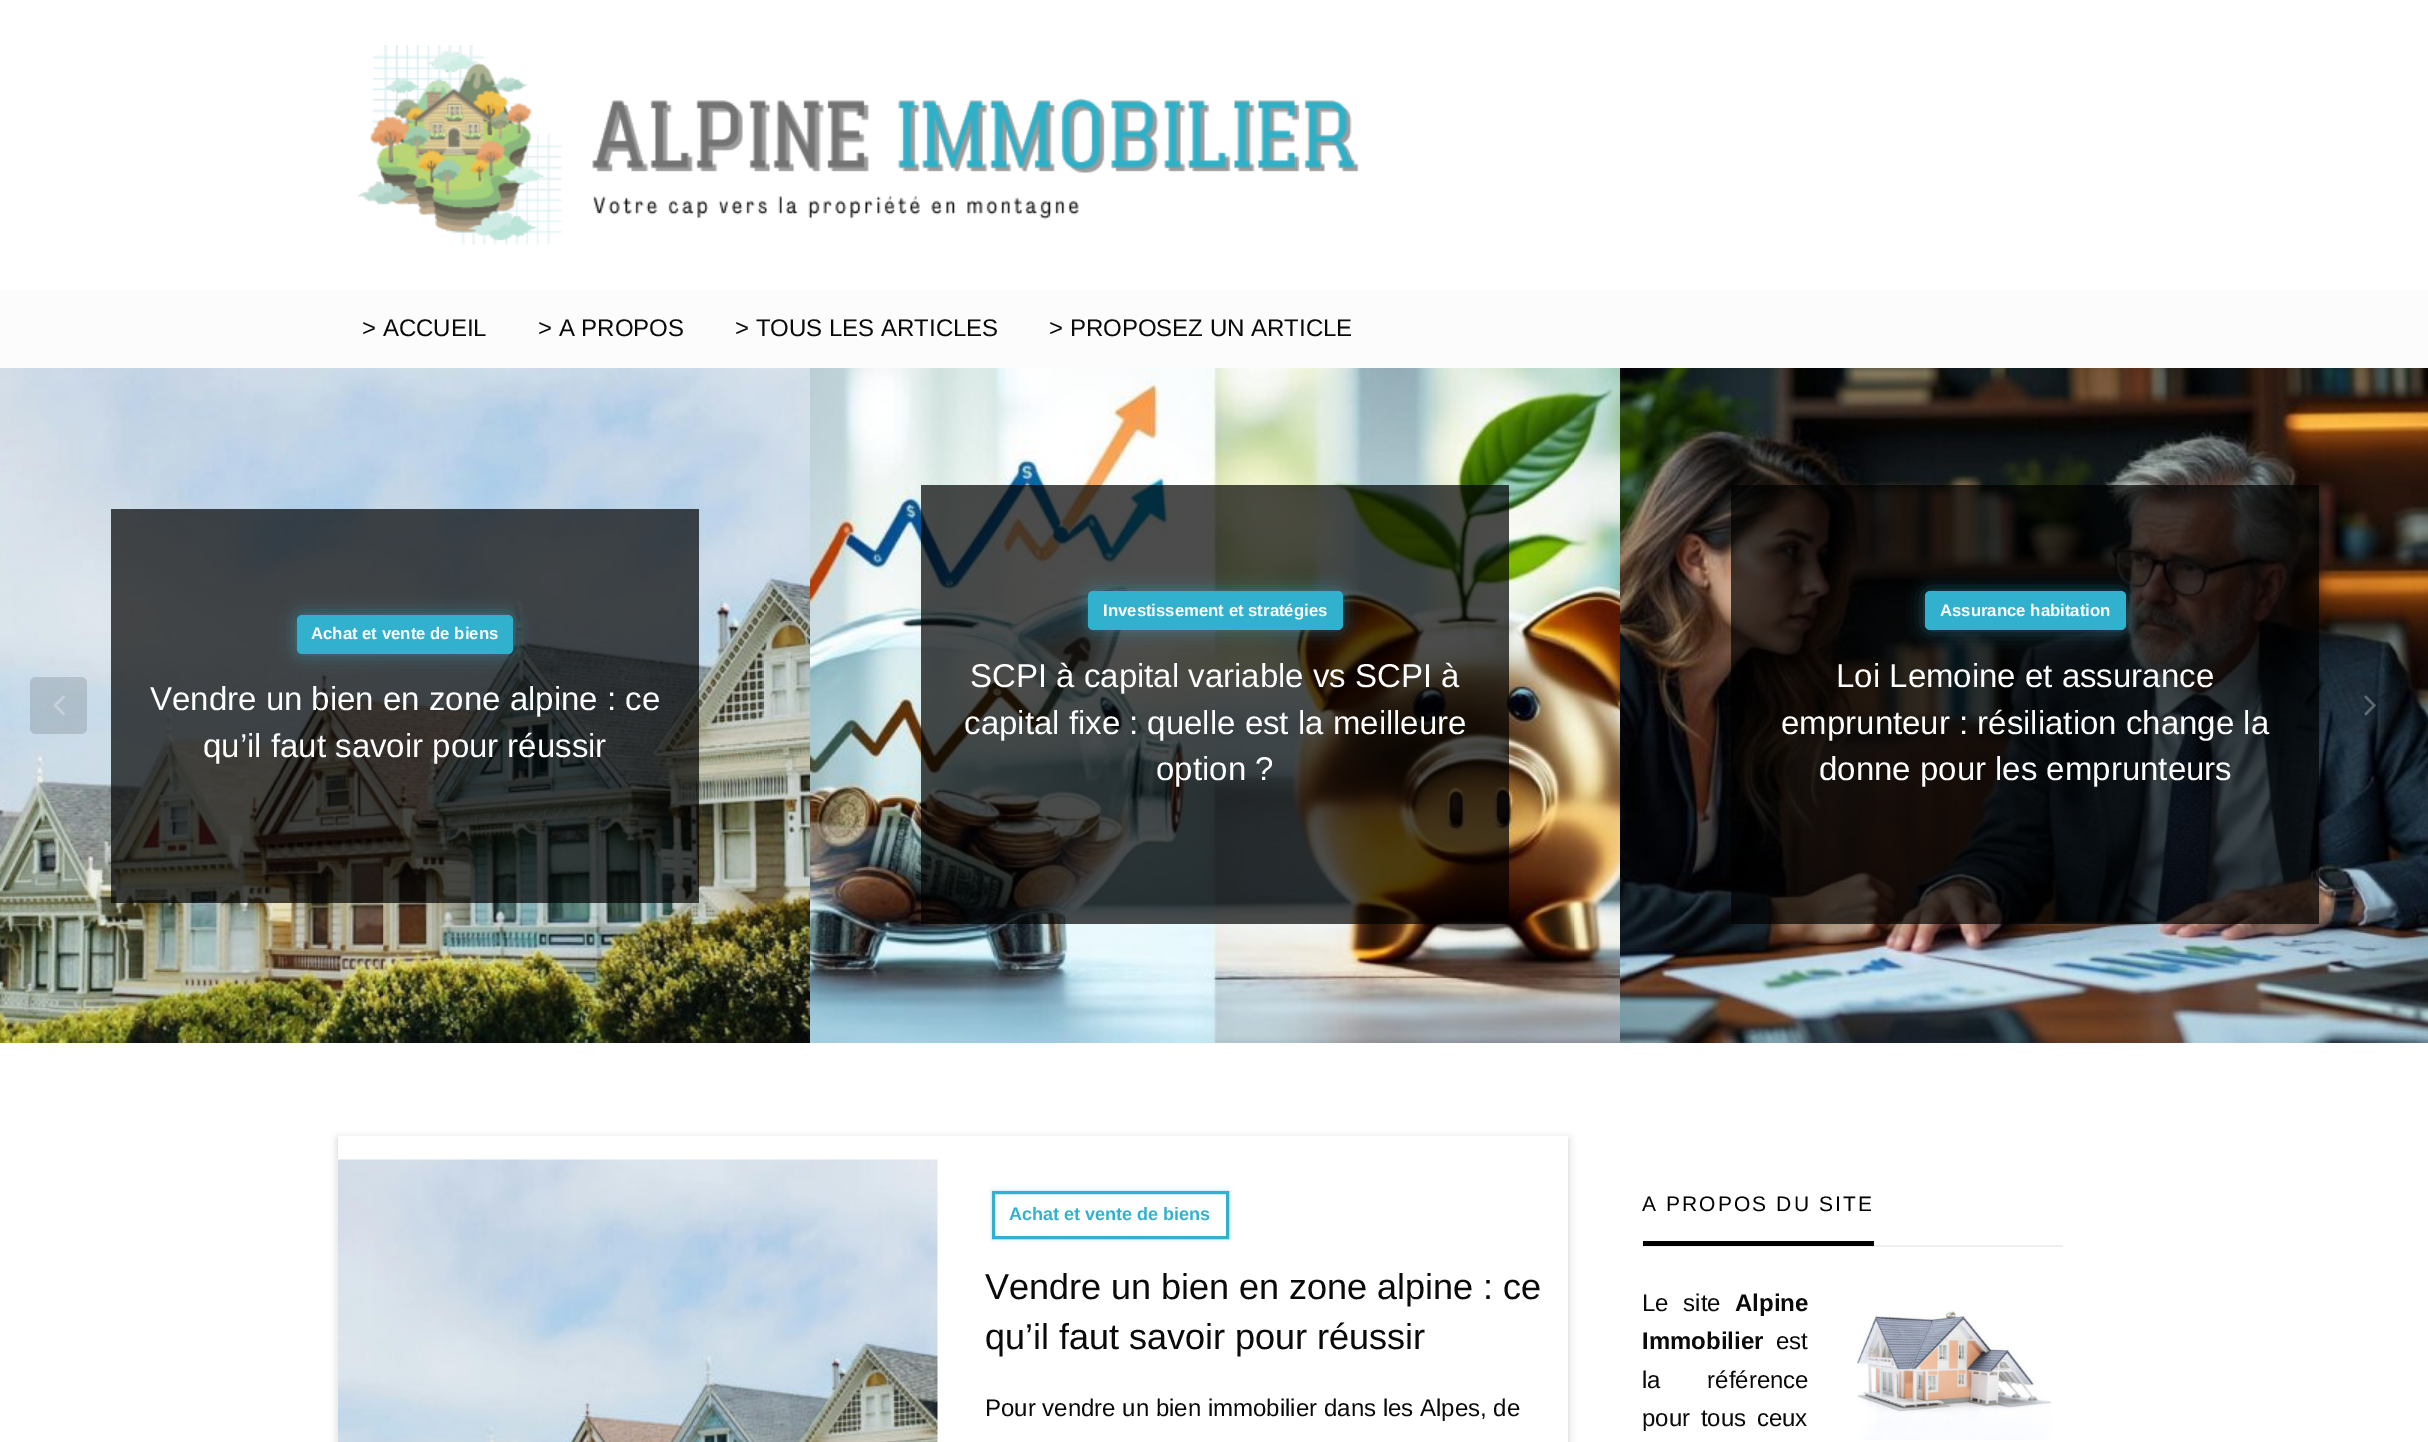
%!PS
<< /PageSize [2428 1442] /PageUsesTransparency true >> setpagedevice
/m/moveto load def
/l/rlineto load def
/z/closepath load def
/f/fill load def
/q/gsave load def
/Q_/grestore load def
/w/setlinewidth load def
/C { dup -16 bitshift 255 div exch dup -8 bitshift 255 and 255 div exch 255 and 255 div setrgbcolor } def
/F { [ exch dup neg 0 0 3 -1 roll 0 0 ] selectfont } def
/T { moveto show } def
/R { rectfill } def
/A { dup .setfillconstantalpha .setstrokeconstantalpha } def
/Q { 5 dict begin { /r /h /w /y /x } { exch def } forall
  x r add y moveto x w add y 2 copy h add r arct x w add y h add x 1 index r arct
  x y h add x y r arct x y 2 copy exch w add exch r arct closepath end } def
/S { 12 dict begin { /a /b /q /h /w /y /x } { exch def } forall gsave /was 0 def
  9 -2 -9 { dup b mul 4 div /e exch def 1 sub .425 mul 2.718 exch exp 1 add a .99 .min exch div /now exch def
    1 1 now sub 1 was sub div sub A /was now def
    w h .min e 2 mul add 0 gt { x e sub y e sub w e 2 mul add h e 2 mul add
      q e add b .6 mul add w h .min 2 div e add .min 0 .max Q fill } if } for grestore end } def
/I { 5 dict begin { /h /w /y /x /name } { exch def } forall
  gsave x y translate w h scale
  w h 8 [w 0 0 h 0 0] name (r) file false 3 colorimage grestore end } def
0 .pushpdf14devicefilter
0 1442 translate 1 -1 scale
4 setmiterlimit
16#FFFFFF C
0 0 2428 1442 R
(1.rgb) 357 45 1002 200 I
16#FCFCFC C
0 290 2428 78 R
/LiberationSans-Regular 24 F
16#0A0A0A C
(> ACCUEIL) 362 336 T
(> A PROPOS) 538 336 T
(> TOUS LES ARTICLES) 735 336 T
(> PROPOSEZ UN ARTICLE) 1049 336 T
(3.rgb) 0 368 810 675 I
0.15 A
16#1C1C1C C
30 677 57 57 6 Q f
1 A
(2.rgb) 53 695 12 21 I
0.7 A
16#000000 C
111 509 588 394 R
1 A
16#32B1CE C
297 615 216 39 5 8.5 .5 S
297 615 216 39 5 Q f
/LiberationSans-Bold 16.75 F
16#FFFFFF C
(Achat et vente de biens) 311 639 T
/LiberationSans-Regular 33 F
(Vendre un bien en zone alpine : ce) 150 710 T
(qu’il faut savoir pour réussir) 203 757 T
(4.rgb) 810 368 810 675 I
0.7 A
16#000000 C
921 485 588 439 R
1 A
16#32B1CE C
1088 591 255 39 5 8.5 .5 S
1088 591 255 39 5 Q f
/LiberationSans-Bold 16.75 F
16#FFFFFF C
(Investissement et stratégies) 1103 616 T
/LiberationSans-Regular 33 F
(SCPI à capital variable vs SCPI à) 970 687 T
(capital fixe : quelle est la meilleure) 964 734 T
(option ?) 1156 780 T
(5.rgb) 1620 368 808 675 I
0.7 A
16#000000 C
1731 485 588 439 R
1 A
16#32B1CE C
1925 591 201 39 5 8.5 .5 S
1925 591 201 39 5 Q f
/LiberationSans-Bold 16.75 F
16#FFFFFF C
(Assurance habitation) 1940 616 T
/LiberationSans-Regular 33 F
(Loi Lemoine et assurance) 1836 687 T
(emprunteur : résiliation change la) 1781 734 T
(donne pour les emprunteurs) 1819 780 T
0.15 A
16#1C1C1C C
2342 677 57 57 6 Q f
1 A
(6.rgb) 2364 695 12 21 I
16#000000 C
338 1139 1230 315 0 4 .2 S
16#FFFFFF C
338 1136 1230 306 R
(7.rgb) 337 1159 601 283 I
q
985 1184 m 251 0 l 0 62 l -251 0 l z 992 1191 m 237 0 l 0 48 l -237 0 l z eoclip newpath
16#32B1CE C
992 1191 237 48 0 2 .4 S
Q_
16#32B1CE C
3 w
993.5 1192.5 234 45 rectstroke
/LiberationSans-Bold 18 F
(Achat et vente de biens) 1009 1220 T
/LiberationSans-Regular 36 F
16#0A0A0A C
(Vendre un bien en zone alpine : ce) 985 1299 T
(qu’il faut savoir pour réussir) 985 1349 T
/LiberationSans-Regular 24 F
(Pour vendre un bien immobilier dans les Alpes, de) 985 1416 T
16#EFEFEF C
1643 1245 420 2 R
16#000000 C
1643 1241 231 5 R
/LiberationSans-Regular 21 F
1642 1211 m 2.1 0 (A PROPOS DU SITE) ashow
/LiberationSans-Regular 24 F
16#0A0A0A C
1642 1311 m 8 0 32 (Le site) widthshow
/LiberationSans-Bold 24 F
(Alpine) 1735 1311 T
(Immobilier) 1642 1349 T
/LiberationSans-Regular 24 F
(est) 1776 1349 T
(8.rgb) 1857 1310 195 130 I
1642 1388 m 40 0 32 (la référence) widthshow
1642 1426 m 4 0 32 (pour tous ceux) widthshow
.poppdf14devicefilter showpage
